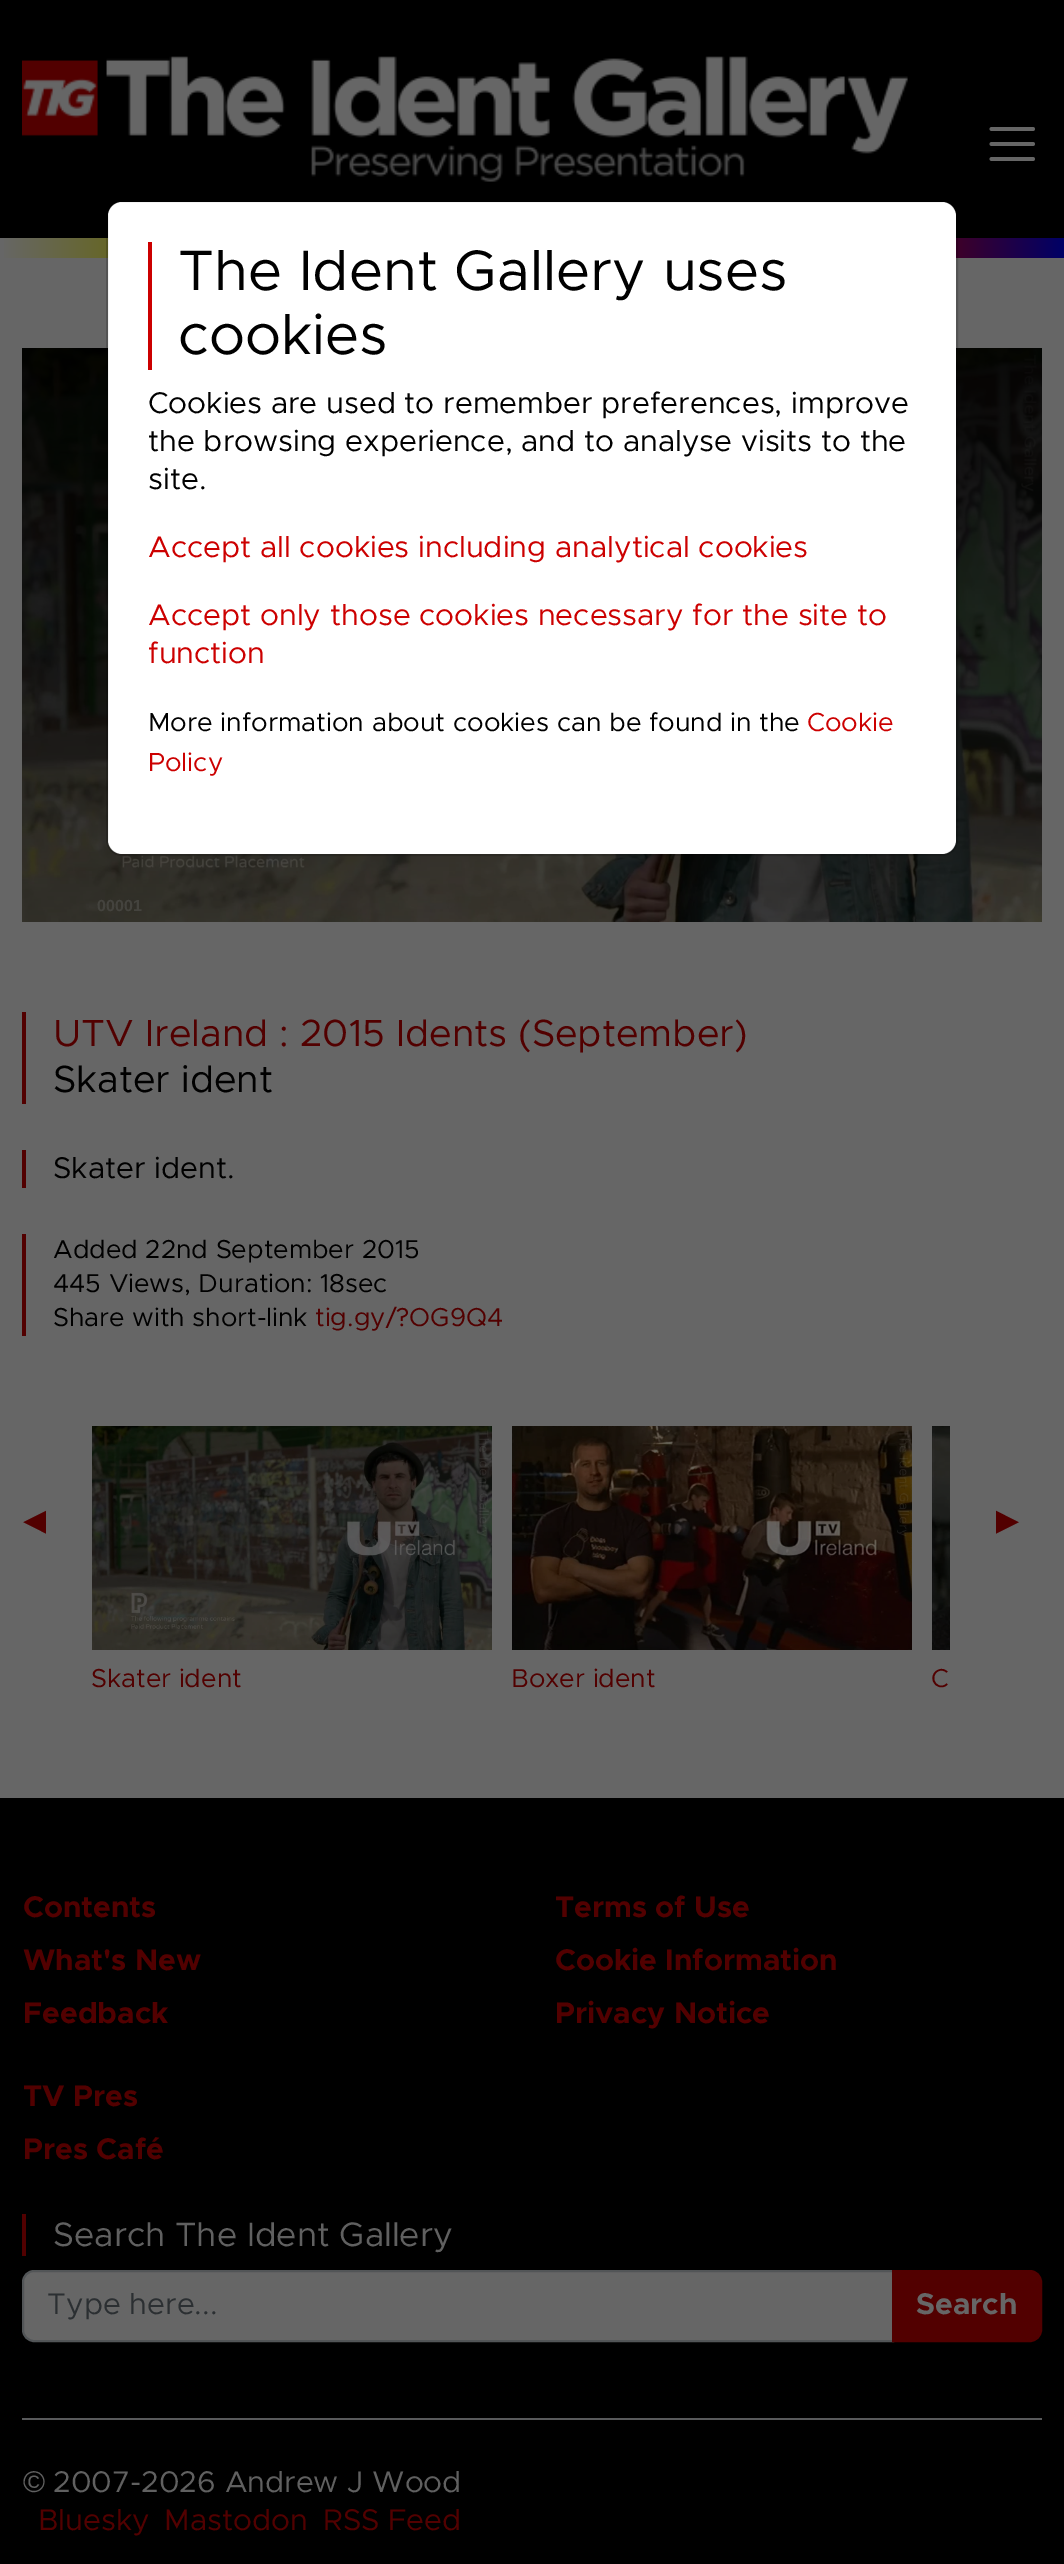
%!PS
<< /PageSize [1064 2564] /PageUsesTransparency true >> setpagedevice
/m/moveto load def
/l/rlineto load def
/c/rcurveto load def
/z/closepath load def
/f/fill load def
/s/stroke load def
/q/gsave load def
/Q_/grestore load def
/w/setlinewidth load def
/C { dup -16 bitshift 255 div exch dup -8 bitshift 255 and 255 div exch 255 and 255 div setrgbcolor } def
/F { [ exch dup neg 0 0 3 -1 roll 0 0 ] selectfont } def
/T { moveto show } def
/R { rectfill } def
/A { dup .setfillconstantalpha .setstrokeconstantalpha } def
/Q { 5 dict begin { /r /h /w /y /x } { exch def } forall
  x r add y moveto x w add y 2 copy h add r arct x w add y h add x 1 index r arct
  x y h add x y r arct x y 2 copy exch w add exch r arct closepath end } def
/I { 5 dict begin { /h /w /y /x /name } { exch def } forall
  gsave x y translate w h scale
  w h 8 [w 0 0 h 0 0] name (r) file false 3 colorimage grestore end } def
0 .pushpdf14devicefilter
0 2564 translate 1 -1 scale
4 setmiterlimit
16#666666 C
0 0 1064 2564 R
16#000000 C
0 0 1064 238 R
(1.rgb) 22 56 886 126 I
16#666666 C
3.8 w
1 setlinecap
991.5 129 m 41.5 0 l 991.5 144 m 41.5 0 l 991.5 159 m 41.5 0 l s
q 4 238 m 1060 0 l 0 20 l -1060 0 l z clip newpath
<< /ShadingType 2 /ColorSpace /DeviceRGB /Coords [0 248 1064 248] /Extend [true true] /Function << /FunctionType 3 /Domain [0 1] /Functions [<< /FunctionType 2 /Domain [0 1] /C0 [.4 .4 .4] /C1 [.4 .4 0] /N 1 >> << /FunctionType 2 /Domain [0 1] /C0 [.4 .4 0] /C1 [0 .4 .4] /N 1 >> << /FunctionType 2 /Domain [0 1] /C0 [0 .4 .4] /C1 [0 .4 0] /N 1 >> << /FunctionType 2 /Domain [0 1] /C0 [0 .4 0] /C1 [.4 0 .4] /N 1 >> << /FunctionType 2 /Domain [0 1] /C0 [.4 0 .4] /C1 [.4 0 0] /N 1 >> << /FunctionType 2 /Domain [0 1] /C0 [.4 0 0] /C1 [0 0 .4] /N 1 >>] /Bounds [.17 .33 .5 .67 .83] /Encode [0 1 0 1 0 1 0 1 0 1 0 1] >> >> shfill Q_
(2.rgb) 22 348 1020 574 I
16#FFFFFF C
108 202 848 652 14 Q f
0.18 A
16#000000 C
2 w
0 setlinecap
107 201 850 654 15 Q s
1 A
16#CC0000 C
148 242 4 128 R
/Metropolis-Regular 57.25 F
16#000000 C
(The Ident Gallery uses) 178 290 T
(cookies) 178 354 T
/Metropolis-Regular 30 F
(Cookies are used to remember preferences, improve) 148 413 T
(the browsing experience, and to analyse visits to the) 148 451 T
(site.) 148 489 T
16#CC0000 C
(Accept all cookies including analytical cookies) 148 557 T
(Accept only those cookies necessary for the site to) 148 625 T
(function) 148 663 T
/Metropolis-Regular 26.25 F
16#000000 C
(More information about cookies can be found in the) 148 731 T
16#CC0000 C
(Cookie) 807 731 T
(Policy) 148 771 T
/LiberationSans-Bold 16 F
16#44433E C
(00001) 97 911 T
16#520000 C
22 1012 4 92 R
/Metropolis-Regular 38 F
(UTV Ireland : 2015 Idents \(September\)) 53 1046 T
16#000000 C
(Skater ident) 53 1092 T
16#520000 C
22 1150 4 38 R
/Metropolis-Regular 30 F
16#000000 C
(Skater ident.) 53 1178 T
16#520000 C
22 1234 4 102 R
/Metropolis-Regular 26 F
16#000000 C
(Added 22nd September 2015) 53 1258 T
(445 Views, Duration: 18sec) 53 1292 T
(Share with short-link) 53 1326 T
16#520000 C
(tig.gy/?OG9Q4) 315 1326 T
/DejaVuSans-Regular 30 F
(◀) 23 1530 T
(▶) 996 1530 T
(3.rgb) 92 1426 400 224 I
/Metropolis-Regular 26 F
(Skater ident) 91 1687 T
(4.rgb) 512 1426 400 224 I
(Boxer ident) 511 1687 T
(5.rgb) 932 1426 18 224 I
(C) 931 1687 T
16#000000 C
0 1798 1064 766 R
/Metropolis-Bold 30 F
16#520000 C
(Contents) 23 1917 T
(What's New) 23 1970 T
(Feedback) 23 2023 T
(Terms of Use) 555 1917 T
(Cookie Information) 555 1970 T
(Privacy Notice) 555 2023 T
(TV Pres) 23 2106 T
(Pres Café) 23 2159 T
22 2214 4 42 R
/Metropolis-Regular 34 F
16#606060 C
(Search The Ident Gallery) 53 2246 T
16#666666 C
34 2271 m 859 0 l 0 70 l -859 0 l -6 0 -11 -5 -11 -11 c 0 -48 l 0 -6 5 -11 11 -11 c z q f Q_
16#525557 C
s
/Metropolis-Regular 30 F
16#2B2F32 C
(Type here...) 47 2314 T
16#520000 C
893 2271 m 137 0 l 6 0 11 5 11 11 c 0 48 l 0 6 -5 11 -11 11 c -137 0 l z q f Q_
s
/Metropolis-Bold 30 F
16#666666 C
(Search) 916 2314 T
16#595A5C C
22 2418 1020 2 R
/LiberationSans-Regular 30 F
16#606060 C
(©) 23 2492 T
/Metropolis-Regular 30 F
(2007-2026 Andrew J Wood) 53 2492 T
16#520000 C
(Bluesky) 38 2530 T
(Mastodon) 164 2530 T
(RSS Feed) 323 2530 T
.poppdf14devicefilter showpage
